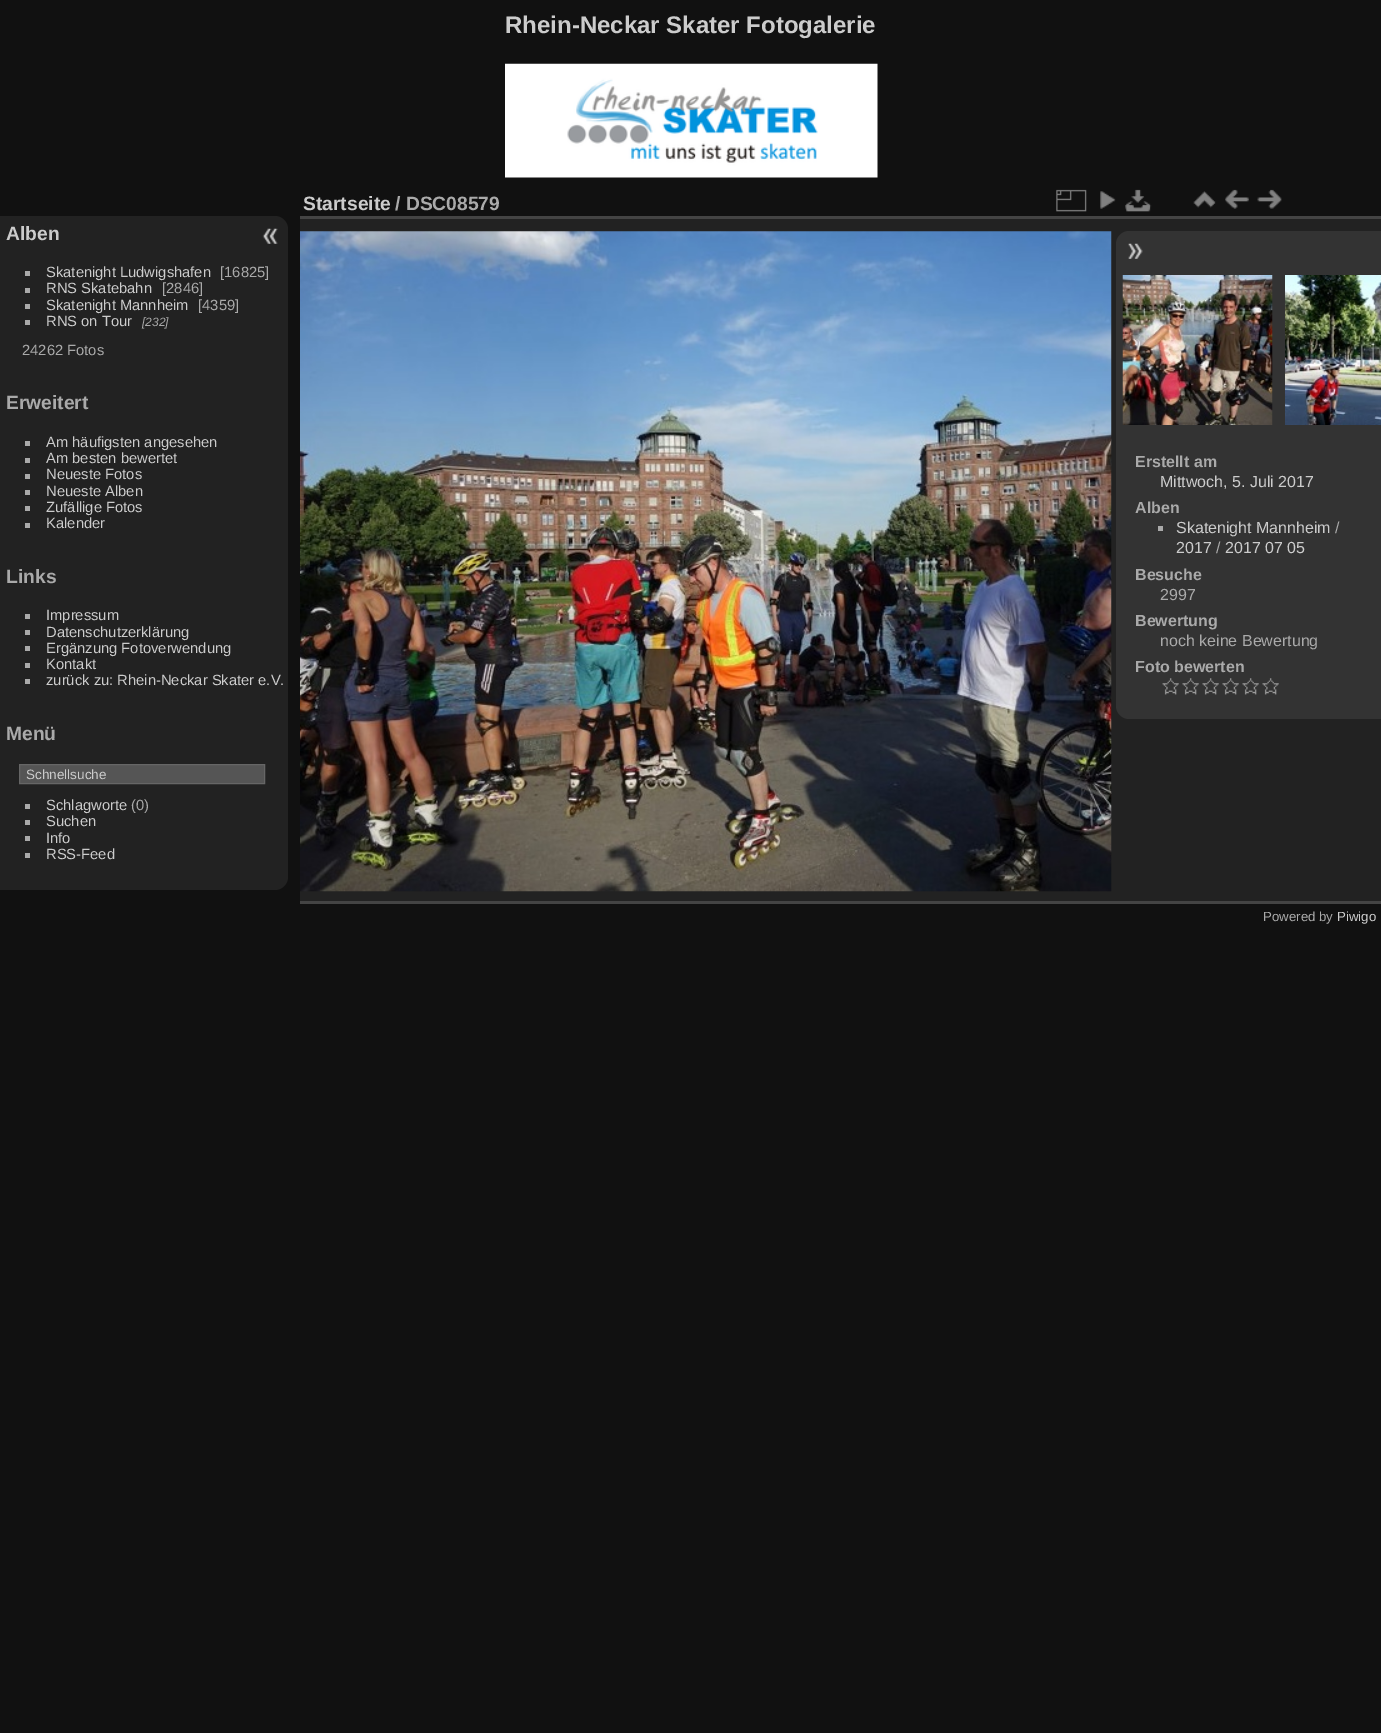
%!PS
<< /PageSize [1381 1733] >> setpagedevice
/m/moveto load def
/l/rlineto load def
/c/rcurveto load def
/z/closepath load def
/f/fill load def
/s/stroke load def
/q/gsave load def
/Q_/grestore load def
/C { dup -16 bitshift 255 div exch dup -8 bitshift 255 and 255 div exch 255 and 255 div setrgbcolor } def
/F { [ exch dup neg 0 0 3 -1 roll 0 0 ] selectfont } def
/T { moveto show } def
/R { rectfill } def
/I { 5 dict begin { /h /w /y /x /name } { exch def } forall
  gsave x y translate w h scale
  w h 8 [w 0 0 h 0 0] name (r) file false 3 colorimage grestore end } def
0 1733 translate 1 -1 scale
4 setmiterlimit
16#111111 C
0 0 1381 1733 R
/LiberationSans-Bold 24 F
16#CCCCCC C
(Rhein-Neckar Skater Fotogalerie) 505 33 T
(1.rgb) 505 63 373 115 I
16#222222 C
0 216 m 275 0 l 7 0 13 6 13 13 c 0 648 l 0 7 -6 13 -13 13 c -275 0 l z f
/LiberationSans-Bold 19.25 F
16#CCCCCC C
(Alben) 6 240 T
16#AAAAAA C
25 271 5 5 R
/LiberationSans-Regular 14.75 F
16#CCCCCC C
(Skatenight Ludwigshafen) 46 277 T
16#AAAAAA C
([16825]) 220 277 T
25 288 5 5 R
16#CCCCCC C
(RNS Skatebahn) 46 293 T
16#AAAAAA C
([2846]) 162 293 T
25 304 5 5 R
16#CCCCCC C
(Skatenight Mannheim) 46 310 T
16#AAAAAA C
([4359]) 198 310 T
25 320 5 5 R
16#CCCCCC C
(RNS on Tour) 46 326 T
/LiberationSans-Italic 12 F
16#AAAAAA C
([232]) 142 326 T
/LiberationSans-Regular 14.75 F
(24262 Fotos) 22 355 T
/LiberationSans-Bold 19.25 F
(Erweitert) 6 409 T
25 441 5 5 R
/LiberationSans-Regular 14.75 F
16#CCCCCC C
(Am häufigsten angesehen) 46 447 T
16#AAAAAA C
25 458 5 5 R
16#CCCCCC C
(Am besten bewertet) 46 463 T
16#AAAAAA C
25 474 5 5 R
16#CCCCCC C
(Neueste Fotos) 46 479 T
16#AAAAAA C
25 490 5 5 R
16#CCCCCC C
(Neueste Alben) 46 496 T
16#AAAAAA C
25 506 5 5 R
16#CCCCCC C
(Zufällige Fotos) 46 512 T
16#AAAAAA C
25 523 5 5 R
16#CCCCCC C
(Kalender) 46 528 T
/LiberationSans-Bold 19.25 F
16#AAAAAA C
(Links) 6 583 T
25 614 5 5 R
/LiberationSans-Regular 14.75 F
16#CCCCCC C
(Impressum) 46 620 T
16#AAAAAA C
25 630 5 5 R
16#CCCCCC C
(Datenschutzerklärung) 46 637 T
16#AAAAAA C
25 646 5 5 R
16#CCCCCC C
(Ergänzung Fotoverwendung) 46 653 T
16#AAAAAA C
25 663 5 5 R
16#CCCCCC C
(Kontakt) 46 669 T
16#AAAAAA C
25 679 5 5 R
16#CCCCCC C
(zurück zu: Rhein-Neckar Skater e.V.) 46 685 T
/LiberationSans-Bold 19.25 F
16#AAAAAA C
(Menü) 6 740 T
16#555555 C
19.5 764.5 m 245 0 l 0 19 l -245 0 l z q f Q_
16#666666 C
s
/LiberationSans-Regular 13.5 F
16#CCCCCC C
(Schnellsuche) 26 779 T
16#AAAAAA C
25 804 5 5 R
/LiberationSans-Regular 14.75 F
16#CCCCCC C
(Schlagworte) 46 810 T
16#AAAAAA C
(\(0\)) 131 810 T
25 820 5 5 R
16#CCCCCC C
(Suchen) 46 826 T
16#AAAAAA C
25 836 5 5 R
16#CCCCCC C
(Info) 46 843 T
16#AAAAAA C
25 853 5 5 R
16#CCCCCC C
(RSS-Feed) 46 859 T
16#222222 C
300 219 1081 682 R
16#444444 C
300 901 1081 3 R
300 216 1081 3 R
/LiberationSans-Bold 19.25 F
16#CCCCCC C
(Startseite) 303 210 T
16#AAAAAA C
(/ DSC08579) 395 210 T
(2.rgb) 1056 189 31 23 I
(3.rgb) 1100 191 16 18 I
(4.rgb) 1125 189 27 23 I
(5.rgb) 1193 191 23 17 I
(6.rgb) 1225 189 24 20 I
(7.rgb) 1257 189 25 20 I
(8.rgb) 300 231 812 661 I
16#333333 C
1129 231 m 252 0 l 0 488 l -252 0 l -7 0 -13 -6 -13 -13 c 0 -462 l 0 -7 6 -13 13 -13 c z f
(9.rgb) 1128 243 15 16 I
(10.rgb) 1122 275 151 150 I
(11.rgb) 1285 275 96 150 I
/LiberationSans-Bold 16 F
16#AAAAAA C
(Erstellt am) 1135 467 T
/LiberationSans-Regular 16 F
16#CCCCCC C
(Mittwoch, 5. Juli 2017) 1160 487 T
/LiberationSans-Bold 16 F
16#AAAAAA C
(Alben) 1135 513 T
1158 526 5 5 R
/LiberationSans-Regular 16 F
16#CCCCCC C
(Skatenight Mannheim) 1176 533 T
16#AAAAAA C
(/) 1335 533 T
16#CCCCCC C
(2017) 1176 553 T
16#AAAAAA C
(/) 1216 553 T
16#CCCCCC C
(2017 07 05) 1225 553 T
/LiberationSans-Bold 16 F
16#AAAAAA C
(Besuche) 1135 580 T
/LiberationSans-Regular 16 F
(2997) 1160 600 T
/LiberationSans-Bold 16 F
(Bewertung) 1135 626 T
/LiberationSans-Regular 16 F
(noch keine Bewertung) 1160 646 T
/LiberationSans-Bold 16 F
(Foto bewerten) 1135 672 T
(12.rgb) 1162 678 17 17 I
(13.rgb) 1182 678 17 17 I
(13.rgb) 1202 678 17 17 I
(13.rgb) 1222 678 17 17 I
(13.rgb) 1242 678 17 17 I
(14.rgb) 1262 678 17 17 I
(15.rgb) 262 228 16 16 I
/LiberationSans-Regular 13.25 F
(Powered by) 1263 921 T
16#CCCCCC C
(Piwigo) 1337 921 T
showpage
